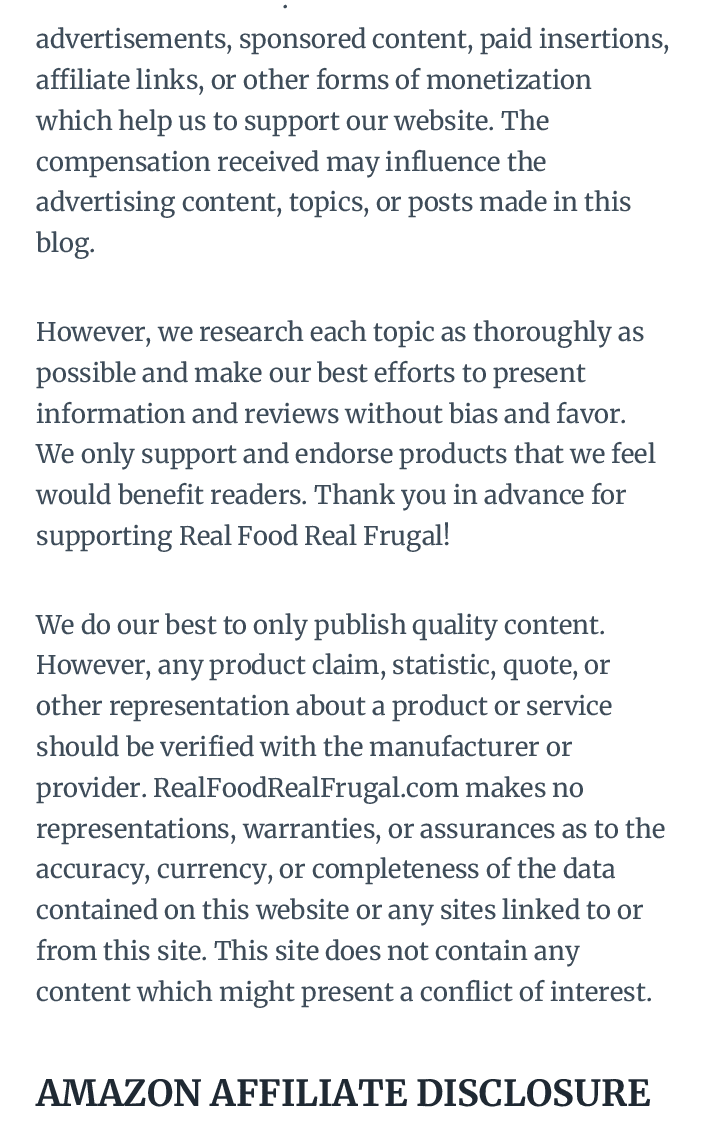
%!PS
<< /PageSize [706 1148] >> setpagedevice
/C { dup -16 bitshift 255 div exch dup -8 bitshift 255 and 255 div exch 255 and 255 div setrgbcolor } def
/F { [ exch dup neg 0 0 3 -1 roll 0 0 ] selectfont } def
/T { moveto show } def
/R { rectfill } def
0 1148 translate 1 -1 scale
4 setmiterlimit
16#FFFFFF C
0 0 706 1148 R
/Merriweather-Regular 25.5 F
16#3E4C59 C
(.) 282 8 T
(advertisements, sponsored content, paid insertions,) 36 48 T
(affiliate links, or other forms of monetization) 36 89 T
(which help us to support our website. The) 36 130 T
(compensation received may influence the) 36 171 T
(advertising content, topics, or posts made in this) 36 211 T
(blog.) 36 252 T
(However, we research each topic as thoroughly as) 36 341 T
(possible and make our best efforts to present) 36 382 T
(information and reviews without bias and favor.) 36 423 T
(We only support and endorse products that we feel) 36 463 T
(would benefit readers. Thank you in advance for) 36 504 T
(supporting Real Food Real Frugal!) 36 545 T
(We do our best to only publish quality content.) 36 634 T
(However, any product claim, statistic, quote, or) 36 674 T
(other representation about a product or service) 36 715 T
(should be verified with the manufacturer or) 36 756 T
(provider. RealFoodRealFrugal.com makes no) 36 797 T
(representations, warranties, or assurances as to the) 36 838 T
(accuracy, currency, or completeness of the data) 36 878 T
(contained on this website or any sites linked to or) 36 919 T
(from this site. This site does not contain any) 36 960 T
(content which might present a conflict of interest.) 36 1001 T
/Merriweather-Bold 36 F
16#1F2933 C
(AMAZON AFFILIATE DISCLOSURE) 36 1106 T
showpage
